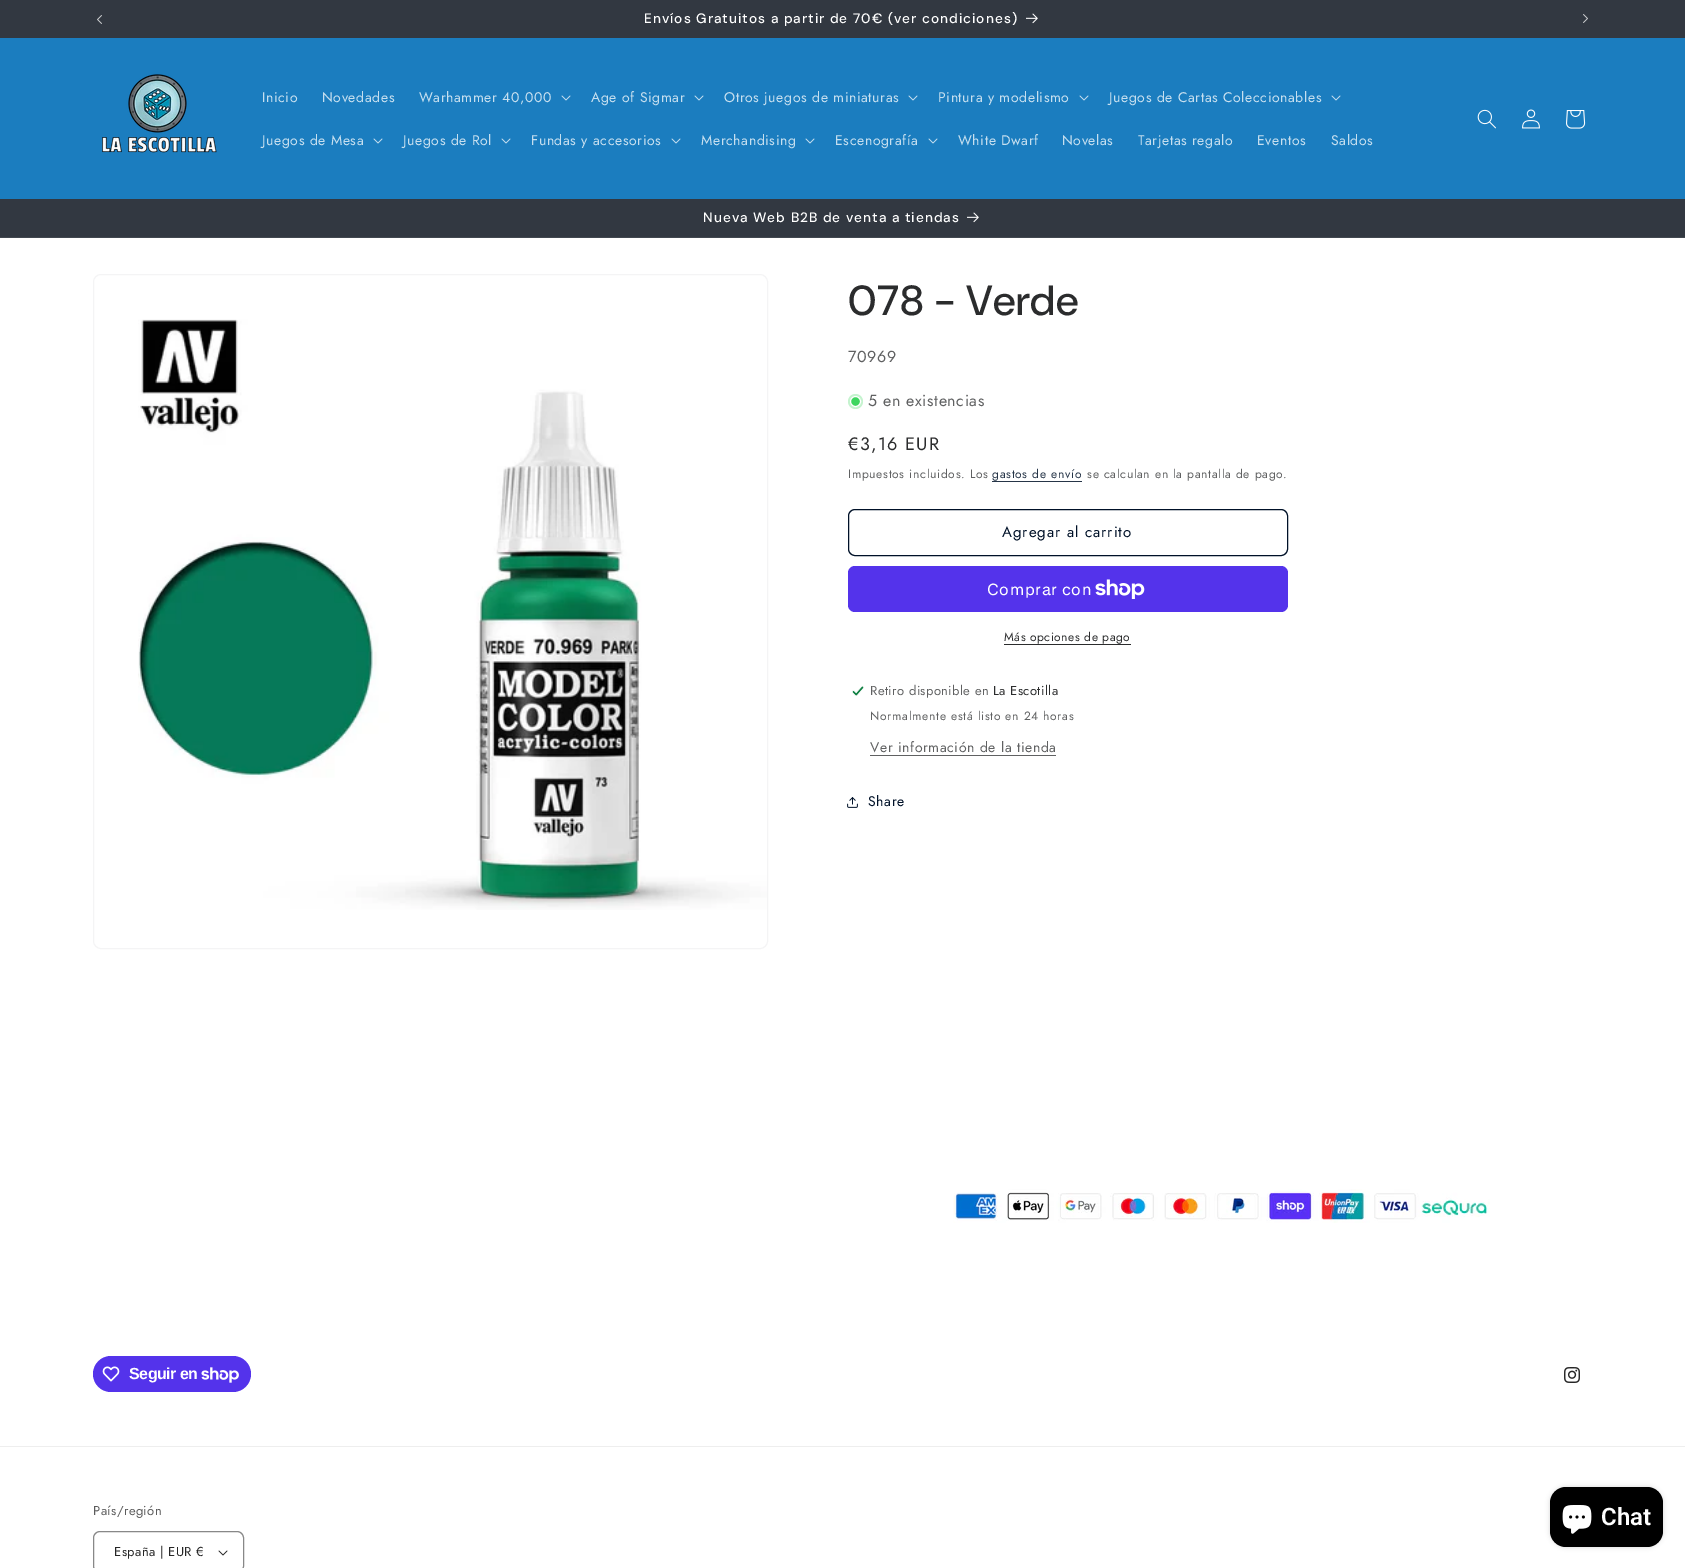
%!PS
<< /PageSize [1685 1568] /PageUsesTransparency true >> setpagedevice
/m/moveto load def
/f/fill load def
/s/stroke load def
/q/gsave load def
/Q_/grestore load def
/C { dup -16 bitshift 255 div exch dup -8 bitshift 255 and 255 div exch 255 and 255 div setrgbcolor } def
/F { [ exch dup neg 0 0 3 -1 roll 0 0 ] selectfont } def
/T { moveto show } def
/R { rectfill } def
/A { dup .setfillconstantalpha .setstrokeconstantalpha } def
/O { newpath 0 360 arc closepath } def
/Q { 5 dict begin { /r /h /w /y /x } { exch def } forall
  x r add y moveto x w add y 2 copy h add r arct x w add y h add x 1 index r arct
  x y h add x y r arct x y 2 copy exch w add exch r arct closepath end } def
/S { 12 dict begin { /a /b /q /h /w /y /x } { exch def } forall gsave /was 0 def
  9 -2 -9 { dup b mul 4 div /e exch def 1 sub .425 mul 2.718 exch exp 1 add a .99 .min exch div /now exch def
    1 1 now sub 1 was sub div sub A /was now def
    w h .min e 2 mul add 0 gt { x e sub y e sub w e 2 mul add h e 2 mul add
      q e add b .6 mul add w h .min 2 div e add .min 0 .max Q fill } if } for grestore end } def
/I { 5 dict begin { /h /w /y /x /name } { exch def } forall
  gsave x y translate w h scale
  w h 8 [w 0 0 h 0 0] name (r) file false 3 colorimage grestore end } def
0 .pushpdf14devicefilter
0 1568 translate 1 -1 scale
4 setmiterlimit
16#FFFFFF C
0 0 1685 1568 R
16#323841 C
0 0 1685 38 R
(1.rgb) 97 15 5 9 I
/DMSans-Medium 13.65 F
16#FFFFFF C
644 23 m 1 0 (Envíos Gratuitos a partir de 70€ \(ver condiciones\)) ashow
(2.rgb) 1026 13 12 11 I
(3.rgb) 1583 14 5 9 I
16#1B7DBF C
0 38 1685 161 R
(4.rgb) 102 74 115 79 I
/Jost-Regular 14 F
16#C6DFEF C
262 102 m .6 0 (Inicio) ashow
322 102 m .6 0 (Novedades) ashow
419 102 m .6 0 (Warhammer 40,000) ashow
(5.rgb) 561 95 10 6 I
591 102 m .6 0 (Age of Sigmar) ashow
(5.rgb) 694 95 10 6 I
724 102 m .6 0 (Otros juegos de miniaturas) ashow
(5.rgb) 908 95 10 6 I
938 102 m .6 0 (Pintura y modelismo) ashow
(5.rgb) 1079 95 10 6 I
1109 102 m .6 0 (Juegos de Cartas Coleccionables) ashow
(5.rgb) 1331 95 10 6 I
262 145 m .6 0 (Juegos de Mesa) ashow
(5.rgb) 373 138 10 6 I
403 145 m .6 0 (Juegos de Rol) ashow
(5.rgb) 501 138 10 6 I
531 145 m .6 0 (Fundas y accesorios) ashow
(5.rgb) 671 138 10 6 I
701 145 m .6 0 (Merchandising) ashow
(5.rgb) 805 138 10 6 I
835 145 m .6 0 (Escenografía) ashow
(5.rgb) 928 138 10 6 I
958 145 m .6 0 (White Dwarf) ashow
1062 145 m .6 0 (Novelas) ashow
1138 145 m .6 0 (Tarjetas regalo) ashow
1257 145 m .6 0 (Eventos) ashow
1331 145 m .6 0 (Saldos) ashow
(6.rgb) 1477 109 19 20 I
(7.rgb) 1522 109 18 20 I
(8.rgb) 1566 110 20 19 I
16#323841 C
0 199 1685 38 R
16#424850 C
0 237 1685 1 R
/DMSans-Medium 13.65 F
16#FFFFFF C
703 222 m 1 0 (Nueva Web B2B de venta a tiendas) ashow
(2.rgb) 967 212 12 11 I
16#F4F4F5 C
93.5 274.5 674 674 7.5 Q s
(9.rgb) 138 319 629 591 I
/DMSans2-Medium 42 F
16#2B2C2D C
848 315 m .6 0 (078 - Verde) ashow
/Jost-Regular 16 F
16#606162 C
848 362 m .6 0 (70969) ashow
16#C5F3CF C
855.5 401.5 7.5 O f
16#3ED660 C
855.5 401.5 5 O q f Q_
16#FFFFFF C
s
16#606162 C
868 406 m .6 0 (5 en existencias) ashow
/Jost-Regular 18 F
16#2B2C2D C
848 450 m 1.25 0 (€3,16 EUR) ashow
/Jost-Regular 12 F
16#606162 C
848 478 m .7 0 (Impuestos incluidos. Los) ashow
16#263548 C
992 478 m .7 0 (gastos de envío) ashow
992 481 90 1 R
16#606162 C
1087 478 m .7 0 (se calculan en la pantalla de pago.) ashow
16#001128 C
848.5 509.5 439 46 6.5 Q s
/Jost-Regular 15 F
1002 537 m 1 0 (Agregar al carrito) ashow
16#5433EB C
848 566 440 46 7 Q f
/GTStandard-Regular 16 F
16#FFFFFF C
987 595 m .6 0 (Comprar con) ashow
(10.rgb) 1095 579 50 20 I
/Jost-Regular 12 F
16#2B2C2D C
1004 641 m .5 0 (Más opciones de pago) ashow
1004 644 127 1 R
(11.rgb) 852 686 12 10 I
/Jost-Regular 13 F
16#606162 C
870 695 m .4 0 (Retiro disponible en) ashow
16#2B2C2D C
993 695 m .4 0 (La Escotilla) ashow
/Jost-Regular 12 F
16#606162 C
870 720 m .7 0 (Normalmente está listo en 24 horas) ashow
/Jost-Regular 14 F
870 752 m .6 0 (Ver información de la tienda) ashow
870 755 186 1 R
(12.rgb) 847 797 11 11 I
16#001128 C
868 806 m .6 0 (Share) ashow
(13.rgb) 953 1189 537 34 I
16#5433EB C
93 1356 158 36 18 Q f
(14.rgb) 102 1366 18 16 I
/LiberationSans-Bold 16 F
16#FFFFFF C
129 1379 m -.5 0 (Seguir en) ashow
(15.rgb) 201 1367 38 16 I
(16.rgb) 1564 1367 16 16 I
16#EEEEEE C
0 1446 1685 1 R
/Jost-Regular 13 F
16#5C5C5C C
93 1515 m .4 0 (País/región) ashow
(17.rgb) 218 1550 10 6 I
16#888888 C
93.5 1531.5 150 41 6.5 Q s
16#262626 C
114 1556 m .4 0 (España | EUR €) ashow
16#000000 C
1550 1487 113 60 16 2.5 .15 S
1550 1487 113 60 16 Q f
(18.rgb) 1562 1505 30 29 I
/Roboto-SemiBold 24 F
16#FFFFFF C
(Chat) 1601 1525 T
.poppdf14devicefilter showpage
